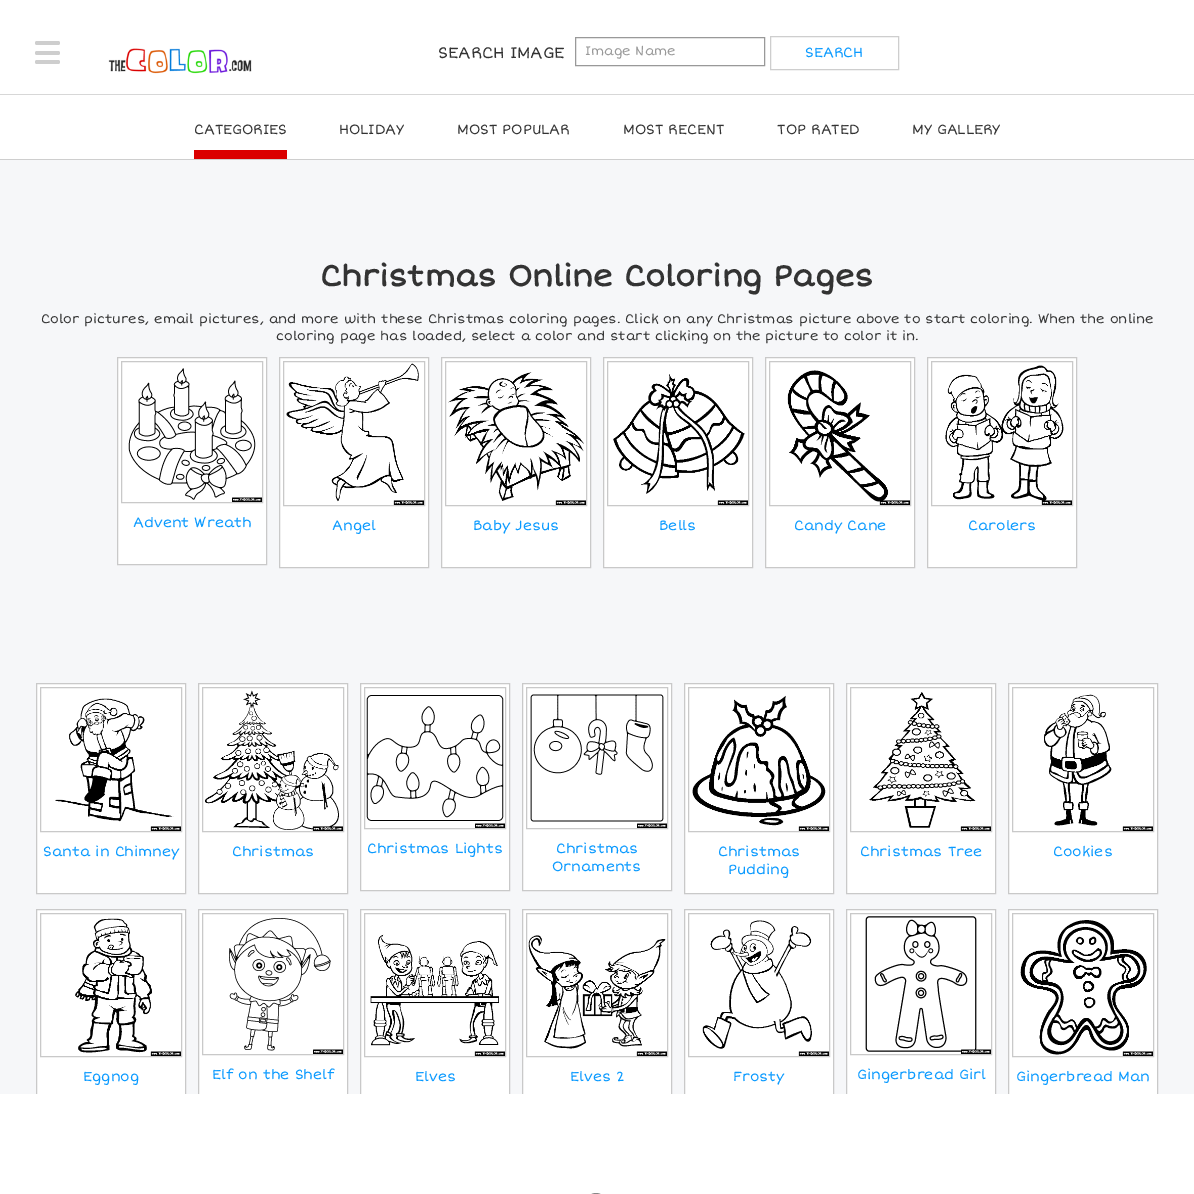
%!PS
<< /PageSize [1194 1194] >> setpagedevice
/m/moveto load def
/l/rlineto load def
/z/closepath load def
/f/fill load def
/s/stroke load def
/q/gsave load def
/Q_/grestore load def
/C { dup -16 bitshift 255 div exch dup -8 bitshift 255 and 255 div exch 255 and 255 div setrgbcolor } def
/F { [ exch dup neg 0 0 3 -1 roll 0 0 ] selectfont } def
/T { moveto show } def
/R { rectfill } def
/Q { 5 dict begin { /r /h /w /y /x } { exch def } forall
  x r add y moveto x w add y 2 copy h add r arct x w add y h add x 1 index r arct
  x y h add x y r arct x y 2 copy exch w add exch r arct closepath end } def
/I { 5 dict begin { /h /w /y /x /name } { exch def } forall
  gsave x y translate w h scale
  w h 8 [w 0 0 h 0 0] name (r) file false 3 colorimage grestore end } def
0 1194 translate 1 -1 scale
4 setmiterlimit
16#F6F7F9 C
0 0 1194 1194 R
16#FFFFFF C
0 0 1194 94 R
16#D7D7D7 C
0 94 1194 1 R
16#CECECE C
35 41 25 4 2 Q f
35 51 25 4 2 Q f
35 60 25 4 2 Q f
(1.rgb) 108 48 144 26 I
/ShortStack-Regular 16 F
16#333333 C
(SEARCH IMAGE) 438 58 T
16#999999 C
575.5 37.5 189 28 rectstroke
/ShortStack-Regular 13 F
(Image Name) 585 55 T
16#CECECE C
770.5 36.5 128 33 rectstroke
/ShortStack-Regular 14 F
16#099AFF C
(SEARCH) 805 57 T
16#FFFFFF C
0 95 1194 64 R
16#CECECE C
0 159 1194 1 R
16#333333 C
(CATEGORIES) 194 134 T
(HOLIDAY) 339 134 T
(MOST POPULAR) 457 134 T
(MOST RECENT) 623 134 T
(TOP RATED) 777 134 T
(MY GALLERY) 912 134 T
16#DB0000 C
194 150 93 9 R
/ShortStack-Bold 30 F
16#333333 C
(Christmas Online Coloring Pages) 320 286 T
/ShortStack-Regular 13 F
(Color pictures, email pictures, and more with these Christmas coloring pages. Click on any Christmas picture above to start coloring. When the online) 41 323 T
(coloring page has loaded, select a color and start clicking on the picture to color it in.) 276 340 T
16#FFFFFF C
117.5 357.5 m 149 0 l 0 207 l -149 0 l z q f Q_
16#C9C9C9 C
s
121.5 361.5 141 141 rectstroke
(2.rgb) 128 368 134 134 I
/ShortStack-Regular 14 F
16#099AFF C
(Advent Wreath) 133 527 T
16#FFFFFF C
279.5 357.5 m 149 0 l 0 210 l -149 0 l z q f Q_
16#C9C9C9 C
s
283.5 361.5 141 144 rectstroke
(3.rgb) 286 363 138 142 I
16#099AFF C
(Angel) 332 530 T
16#FFFFFF C
441.5 357.5 m 149 0 l 0 210 l -149 0 l z q f Q_
16#C9C9C9 C
s
445.5 361.5 141 144 rectstroke
(4.rgb) 448 372 138 133 I
16#099AFF C
(Baby Jesus) 473 530 T
16#FFFFFF C
603.5 357.5 m 149 0 l 0 210 l -149 0 l z q f Q_
16#C9C9C9 C
s
607.5 361.5 141 144 rectstroke
(5.rgb) 613 374 135 131 I
16#099AFF C
(Bells) 659 530 T
16#FFFFFF C
765.5 357.5 m 149 0 l 0 210 l -149 0 l z q f Q_
16#C9C9C9 C
s
769.5 361.5 141 144 rectstroke
(6.rgb) 787 370 123 135 I
16#099AFF C
(Candy Cane) 794 530 T
16#FFFFFF C
927.5 357.5 m 149 0 l 0 210 l -149 0 l z q f Q_
16#C9C9C9 C
s
931.5 361.5 141 144 rectstroke
(7.rgb) 945 365 127 140 I
16#099AFF C
(Carolers) 968 530 T
16#FFFFFF C
36.5 683.5 m 149 0 l 0 210 l -149 0 l z q f Q_
16#C9C9C9 C
s
40.5 687.5 141 144 rectstroke
(8.rgb) 55 698 126 133 I
16#099AFF C
(Santa in Chimney) 43 856 T
16#FFFFFF C
198.5 683.5 m 149 0 l 0 210 l -149 0 l z q f Q_
16#C9C9C9 C
s
202.5 687.5 141 144 rectstroke
(9.rgb) 204 690 139 141 I
16#099AFF C
(Christmas) 232 856 T
16#FFFFFF C
360.5 683.5 m 149 0 l 0 207 l -149 0 l z q f Q_
16#C9C9C9 C
s
364.5 687.5 141 141 rectstroke
(10.rgb) 366 695 139 133 I
16#099AFF C
(Christmas Lights) 367 853 T
16#FFFFFF C
522.5 683.5 m 149 0 l 0 207 l -149 0 l z q f Q_
16#C9C9C9 C
s
526.5 687.5 141 141 rectstroke
(11.rgb) 530 694 137 134 I
16#099AFF C
(Christmas) 556 853 T
(Ornaments) 552 871 T
16#FFFFFF C
684.5 683.5 m 149 0 l 0 210 l -149 0 l z q f Q_
16#C9C9C9 C
s
688.5 687.5 141 144 rectstroke
(12.rgb) 692 695 137 136 I
16#099AFF C
(Christmas) 718 856 T
(Pudding) 728 874 T
16#FFFFFF C
846.5 683.5 m 149 0 l 0 210 l -149 0 l z q f Q_
16#C9C9C9 C
s
850.5 687.5 141 144 rectstroke
(13.rgb) 869 692 122 139 I
16#099AFF C
(Christmas Tree) 860 856 T
16#FFFFFF C
1008.5 683.5 m 149 0 l 0 210 l -149 0 l z q f Q_
16#C9C9C9 C
s
1012.5 687.5 141 144 rectstroke
(14.rgb) 1044 694 109 137 I
16#099AFF C
(Cookies) 1053 856 T
16#FFFFFF C
37 910 148 184 R
16#C9C9C9 C
36.5 909.5 149 209 rectstroke
40.5 913.5 141 143 rectstroke
(15.rgb) 75 918 106 138 I
16#099AFF C
(Eggnog) 83 1081 T
16#FFFFFF C
199 910 148 184 R
16#C9C9C9 C
198.5 909.5 149 207 rectstroke
202.5 913.5 141 141 rectstroke
(16.rgb) 229 918 114 136 I
16#099AFF C
(Elf on the Shelf) 212 1079 T
16#FFFFFF C
361 910 148 184 R
16#C9C9C9 C
360.5 909.5 149 209 rectstroke
364.5 913.5 141 143 rectstroke
(17.rgb) 370 934 135 122 I
16#099AFF C
(Elves) 415 1081 T
16#FFFFFF C
523 910 148 184 R
16#C9C9C9 C
522.5 909.5 149 209 rectstroke
526.5 913.5 141 143 rectstroke
(18.rgb) 528 935 139 121 I
16#099AFF C
(Elves 2) 570 1081 T
16#FFFFFF C
685 910 148 184 R
16#C9C9C9 C
684.5 909.5 149 209 rectstroke
688.5 913.5 141 143 rectstroke
(19.rgb) 702 920 127 136 I
16#099AFF C
(Frosty) 733 1081 T
16#FFFFFF C
847 910 148 184 R
16#C9C9C9 C
846.5 909.5 149 207 rectstroke
850.5 913.5 141 141 rectstroke
(20.rgb) 865 916 126 138 I
16#099AFF C
(Gingerbread Girl) 857 1079 T
16#FFFFFF C
1009 910 148 184 R
16#C9C9C9 C
1008.5 909.5 149 209 rectstroke
1012.5 913.5 141 143 rectstroke
(21.rgb) 1020 920 133 136 I
16#099AFF C
(Gingerbread Man) 1016 1081 T
16#FFFFFF C
0 1094 1194 100 R
16#F9F9F9 C
585.5 1193.5 21 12 10.5 Q s
16#888888 C
585.5 1193.5 21 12 10.5 Q s
showpage
